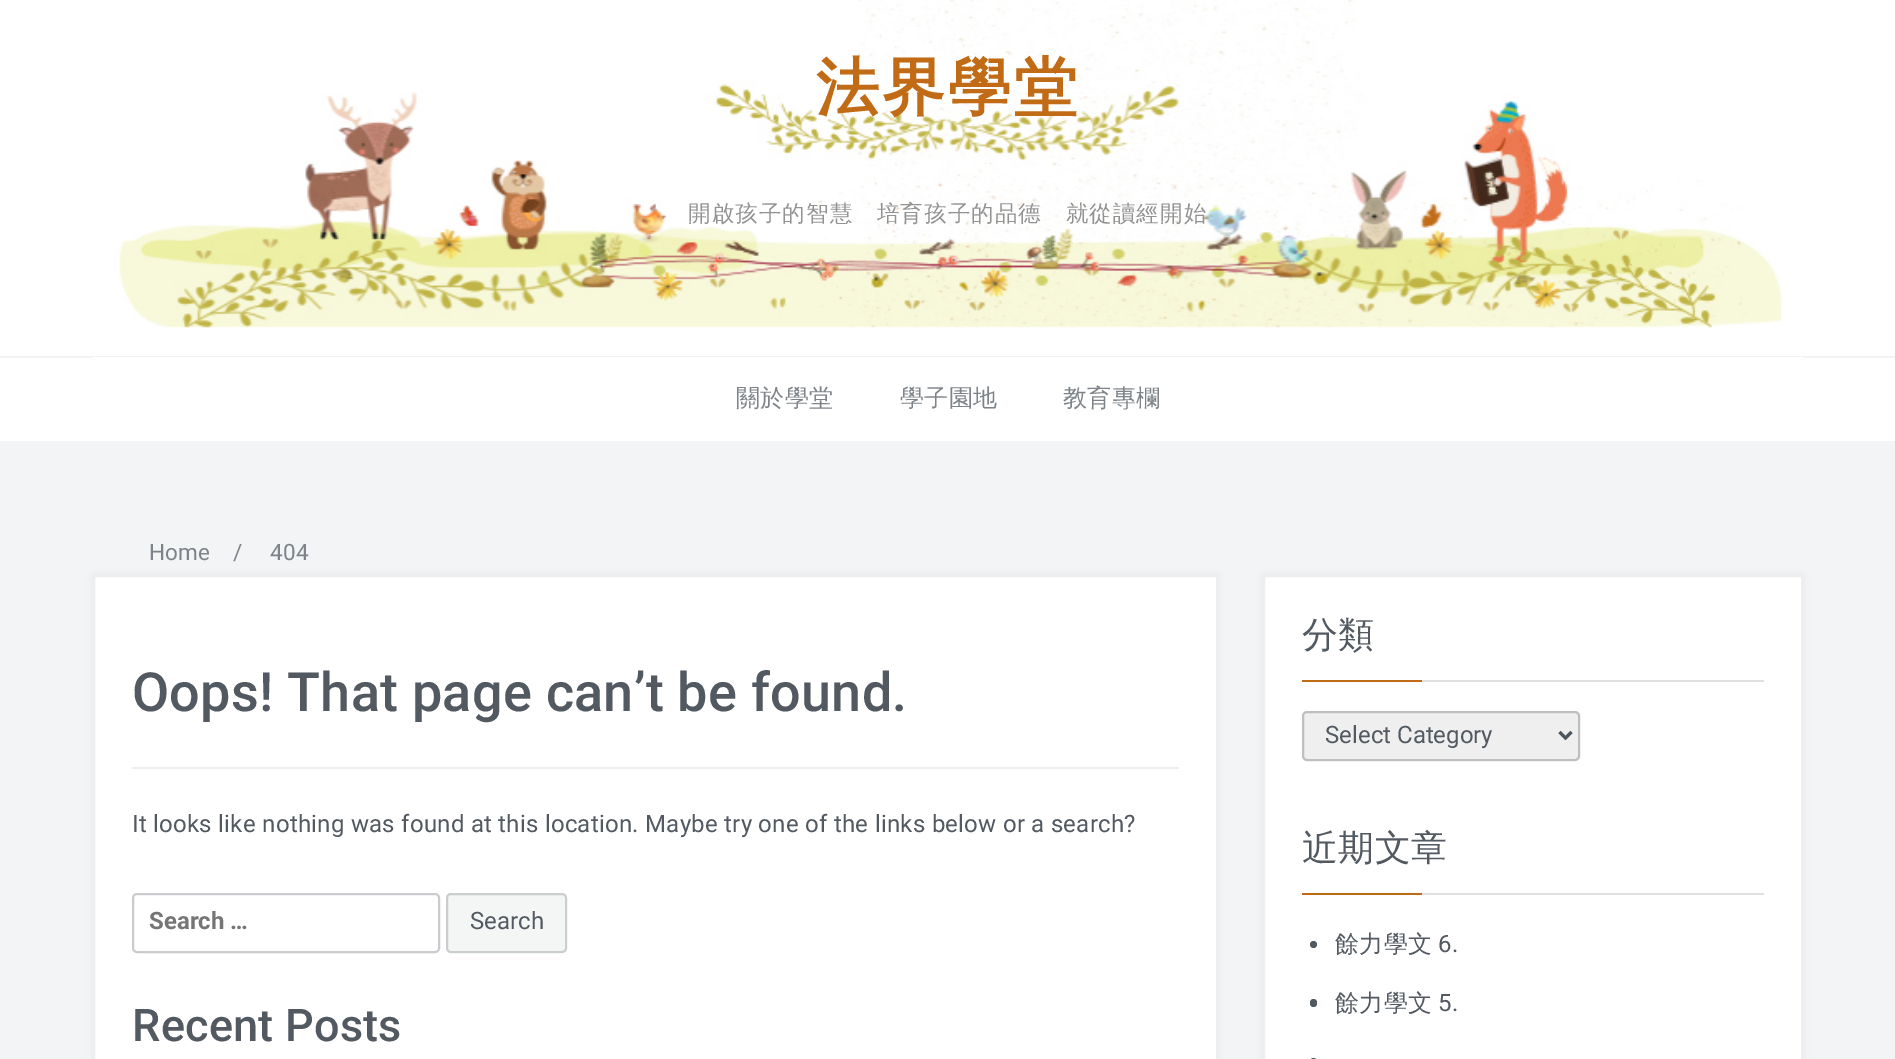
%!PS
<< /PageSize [1895 1059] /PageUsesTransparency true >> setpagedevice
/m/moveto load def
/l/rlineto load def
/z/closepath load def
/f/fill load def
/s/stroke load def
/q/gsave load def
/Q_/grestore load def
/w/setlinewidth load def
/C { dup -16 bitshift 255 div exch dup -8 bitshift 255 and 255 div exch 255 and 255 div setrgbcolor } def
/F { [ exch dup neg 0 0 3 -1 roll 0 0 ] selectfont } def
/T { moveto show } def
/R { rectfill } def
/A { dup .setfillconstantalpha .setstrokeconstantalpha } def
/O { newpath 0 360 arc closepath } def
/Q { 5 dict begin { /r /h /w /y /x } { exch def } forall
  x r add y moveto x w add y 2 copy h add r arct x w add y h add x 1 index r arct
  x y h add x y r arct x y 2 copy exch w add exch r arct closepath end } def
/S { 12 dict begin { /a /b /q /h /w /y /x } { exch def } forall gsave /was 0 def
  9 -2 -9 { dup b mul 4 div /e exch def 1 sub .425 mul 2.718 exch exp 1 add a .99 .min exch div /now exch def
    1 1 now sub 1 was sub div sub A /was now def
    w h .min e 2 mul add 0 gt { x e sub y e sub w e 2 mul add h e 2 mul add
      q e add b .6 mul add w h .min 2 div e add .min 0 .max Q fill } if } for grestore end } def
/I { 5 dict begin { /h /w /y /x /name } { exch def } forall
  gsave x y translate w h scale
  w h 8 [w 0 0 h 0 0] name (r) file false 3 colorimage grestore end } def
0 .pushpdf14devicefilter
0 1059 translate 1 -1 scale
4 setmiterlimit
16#F3F4F6 C
0 0 1895 1059 R
16#FFFFFF C
0 0 1895 441 R
(1.rgb) 119 0 1663 328 I
/WenQuanYiZenHei-Bold 63 F
16#C16B16 C
816 109 m 3 0 (法界學堂) ashow
/WenQuanYiZenHei-Medium 22.5 F
16#929292 C
688 221 m 1.1 0 (開啟孩子的智慧　培育孩子的品德　就從讀經開始) ashow
16#F2F3F3 C
0 356 1895 2 R
16#FFFFFF C
93 357 1710 1 R
/WenQuanYiZenHei-Medium 24 F
16#7D8388 C
736 406 m .25 0 (關於學堂) ashow
900 406 m .25 0 (學子園地) ashow
1063 406 m .25 0 (教育專欄) ashow
/Roboto-Regular 22.5 F
149 560 m .25 0 (Home) ashow
233 560 m .25 0 (/) ashow
270 560 m .25 0 (404) ashow
16#273039 C
93 575 1125 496 0 4 .05 S
16#FFFFFF C
94 576 m 1123 0 l 0 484 l -1123 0 l z q f Q_
16#EEEEEF C
2 w
s
16#EEEEEE C
132 767 1047 2 R
/Roboto-Medium 54 F
16#525961 C
132 711 m .25 0 (Oops! That page can’t be found.) ashow
/Roboto-Regular 24 F
132 832 m .25 0 (It looks like nothing was found at this location. Maybe try one of the links below or a search?) ashow
16#C9CBCE C
133 894 306 58 4 Q s
/Roboto-Bold 24 F
16#757575 C
(Search …) 149 929 T
16#F4F5F5 C
446 893 121 60 5 Q f
0.2 A
16#273039 C
447 894 119 58 4 Q s
/Roboto-Regular 24 F
1 A
16#525961 C
(Search) 470 929 T
/Roboto-Medium 45 F
132 1041 m .25 0 (Recent Posts) ashow
16#273039 C
1263 575 540 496 0 4 .05 S
16#FFFFFF C
1264 576 m 538 0 l 0 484 l -538 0 l z q f Q_
16#EEEEEF C
s
16#DFE0E1 C
1422 680 342 2 R
/WenQuanYiZenHei-Medium 36 F
16#525961 C
1302 647 m .25 0 (分類) ashow
16#C16B16 C
1302 680 120 2 R
16#EFEFEF C
1302 711 278 50 5 Q f
0.25 A
16#273039 C
1303 712 276 48 4 Q s
1 A
16#4F565D C
3 w
1559.5 732 m 6 6 l 6 -6 l s
/Roboto-Regular 24 F
16#525961 C
(Select Category) 1325 743 T
16#DFE0E1 C
1422 893 342 2 R
/WenQuanYiZenHei-Medium 36 F
16#525961 C
1302 860 m .25 0 (近期文章) ashow
16#C16B16 C
1302 893 120 2 R
16#525961 C
1313.5 944.5 3.5 O f
/WenQuanYiZenHei-Medium 24 F
1335 952 m .25 0 (餘力學文) ashow
/Roboto-Regular 24 F
1438 952 m .25 0 (6.) ashow
1310 999 7 8 3.5 Q f
/WenQuanYiZenHei-Medium 24 F
1335 1011 m .25 0 (餘力學文) ashow
/Roboto-Regular 24 F
1438 1011 m .25 0 (5.) ashow
1310 1058 7 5 3.5 Q f
.poppdf14devicefilter showpage
